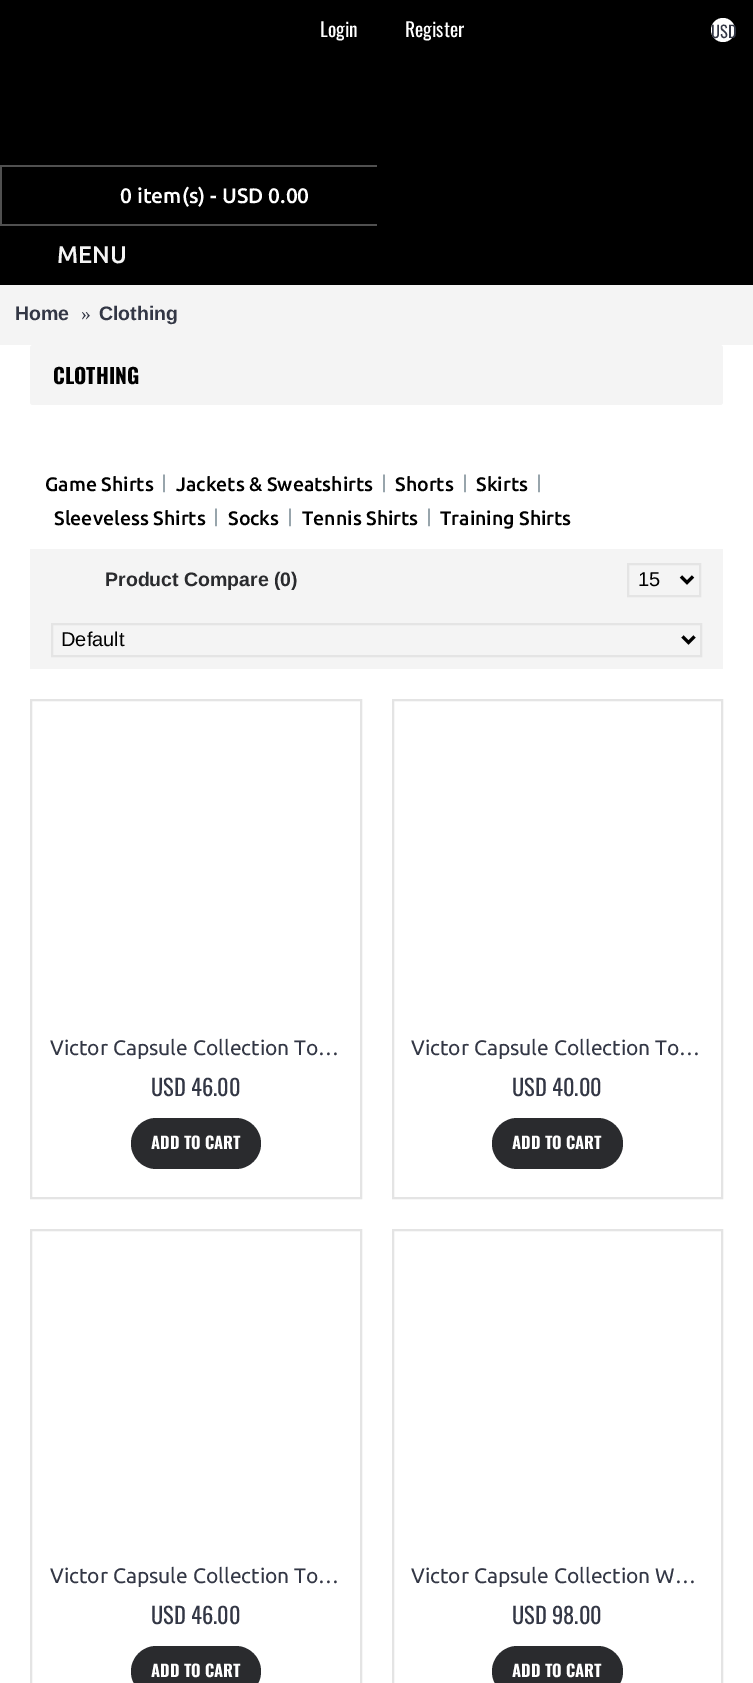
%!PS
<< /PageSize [753 1683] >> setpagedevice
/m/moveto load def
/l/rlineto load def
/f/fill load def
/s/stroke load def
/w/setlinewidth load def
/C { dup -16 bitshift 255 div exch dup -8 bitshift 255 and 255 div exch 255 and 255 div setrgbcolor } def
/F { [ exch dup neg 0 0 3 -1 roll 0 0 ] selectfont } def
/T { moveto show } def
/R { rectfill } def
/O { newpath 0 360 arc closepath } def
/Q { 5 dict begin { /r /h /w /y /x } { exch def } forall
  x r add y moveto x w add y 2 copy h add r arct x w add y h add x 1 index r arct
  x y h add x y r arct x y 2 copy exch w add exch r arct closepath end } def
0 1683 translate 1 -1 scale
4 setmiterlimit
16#000000 C
0 0 753 1683 R
/Oswald-Regular 19.5 F
16#FFFFFF C
(Login) 320 37 T
(Register) 405 37 T
723 30 12 O f
/Oswald-Regular 16.5 F
16#333745 C
(USD) 711 38 T
16#505050 C
0 165 377 2 R
0 224 377 2 R
0 165 2 60 R
/Ubuntu-Medium 21 F
16#FFFFFF C
(0 item\(s\) - USD 0.00) 120 203 T
/Ubuntu-Medium 24 F
16#F4F4F4 C
(MENU) 57 263 T
16#FFFFFF C
0 345 753 1338 R
16#F4F4F4 C
0 285 753 60 R
/LiberationSans-Bold 19.5 F
16#333745 C
(Home) 15 320 T
/LiberationSerif-Regular 19.5 F
(») 81 320 T
/LiberationSans-Bold 19.5 F
(Clothing) 99 320 T
16#F4F4F4 C
30 345 693 60 3 Q f
/Oswald-Bold 21 F
16#000000 C
(CLOTHING) 53 384 T
/Ubuntu-Medium 19.5 F
(Game Shirts) 45 491 T
/LiberationSerif-Regular 19.5 F
16#3F5765 C
(|) 162 488 T
/Ubuntu-Medium 19.5 F
16#000000 C
(Jackets & Sweatshirts) 176 491 T
/LiberationSerif-Regular 19.5 F
16#3F5765 C
(|) 382 488 T
/Ubuntu-Medium 19.5 F
16#000000 C
(Shorts) 395 491 T
/LiberationSerif-Regular 19.5 F
16#3F5765 C
(|) 463 488 T
/Ubuntu-Medium 19.5 F
16#000000 C
(Skirts) 476 491 T
/LiberationSerif-Regular 19.5 F
16#3F5765 C
(|) 537 488 T
/Ubuntu-Medium 19.5 F
16#000000 C
(Sleeveless Shirts) 54 525 T
/LiberationSerif-Regular 19.5 F
16#3F5765 C
(|) 214 522 T
/Ubuntu-Medium 19.5 F
16#000000 C
(Socks) 228 525 T
/LiberationSerif-Regular 19.5 F
16#3F5765 C
(|) 288 522 T
/Ubuntu-Medium 19.5 F
16#000000 C
(Tennis Shirts) 302 525 T
/LiberationSerif-Regular 19.5 F
16#3F5765 C
(|) 427 522 T
/Ubuntu-Medium 19.5 F
16#000000 C
(Training Shirts) 440 525 T
16#F4F4F4 C
30 549 693 120 R
/LiberationSans-Bold 19.5 F
16#2A2B2E C
(Product Compare \(0\)) 105 586 T
16#E4E4E4 C
2 w
628 564 72 32 rectstroke
16#000000 C
3 w
681 576.5 m 6 6 l 6 -6 l s
/LiberationSans-Regular 20 F
(15) 638 586 T
16#E4E4E4 C
2 w
52 624 649 32 rectstroke
16#000000 C
3 w
682.5 636.5 m 6 6 l 6 -6 l s
(Default) 61 646 T
16#E4E4E4 C
2 w
31 700 330 498 rectstroke
/Ubuntu-Regular 21 F
16#333745 C
(Victor Capsule Collection To…) 50 1055 T
/Oswald-Regular 22.5 F
(USD 46.00) 151 1096 T
16#2A2B2E C
131 1118 130 51 25.5 Q f
/Oswald-Bold 16.5 F
16#FFFFFF C
(ADD TO CART) 151 1149 T
16#E4E4E4 C
393 700 329 498 rectstroke
/Ubuntu-Regular 21 F
16#333745 C
(Victor Capsule Collection To…) 411 1055 T
/Oswald-Regular 22.5 F
(USD 40.00) 512 1096 T
16#2A2B2E C
492 1118 131 51 25.5 Q f
/Oswald-Bold 16.5 F
16#FFFFFF C
(ADD TO CART) 512 1149 T
16#E4E4E4 C
31 1230 330 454 rectstroke
/Ubuntu-Regular 21 F
16#333745 C
(Victor Capsule Collection To…) 50 1583 T
/Oswald-Regular 22.5 F
(USD 46.00) 151 1624 T
16#2A2B2E C
131 1646 130 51 25.5 Q f
/Oswald-Bold 16.5 F
16#FFFFFF C
(ADD TO CART) 151 1677 T
16#E4E4E4 C
393 1230 329 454 rectstroke
/Ubuntu-Regular 21 F
16#333745 C
(Victor Capsule Collection W…) 411 1583 T
/Oswald-Regular 22.5 F
(USD 98.00) 512 1624 T
16#2A2B2E C
492 1646 131 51 25.5 Q f
/Oswald-Bold 16.5 F
16#FFFFFF C
(ADD TO CART) 512 1677 T
showpage
